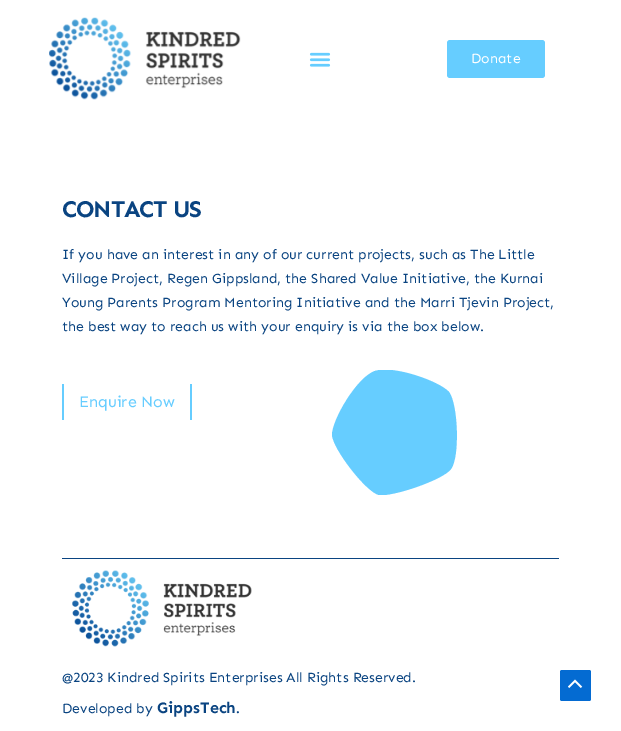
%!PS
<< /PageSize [621 731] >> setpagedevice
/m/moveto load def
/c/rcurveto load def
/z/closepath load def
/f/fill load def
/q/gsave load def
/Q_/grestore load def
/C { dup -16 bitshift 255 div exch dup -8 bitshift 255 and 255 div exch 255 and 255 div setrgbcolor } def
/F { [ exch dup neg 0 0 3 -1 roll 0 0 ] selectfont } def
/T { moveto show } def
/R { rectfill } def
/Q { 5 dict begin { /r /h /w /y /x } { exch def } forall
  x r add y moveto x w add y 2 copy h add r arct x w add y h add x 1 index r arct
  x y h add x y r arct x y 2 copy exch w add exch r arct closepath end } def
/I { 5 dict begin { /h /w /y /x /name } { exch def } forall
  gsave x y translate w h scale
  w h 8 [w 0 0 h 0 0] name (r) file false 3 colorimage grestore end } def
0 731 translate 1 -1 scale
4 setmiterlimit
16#FFFFFF C
0 0 621 731 R
(1.rgb) 49 17 192 83 I
(2.rgb) 309 52 22 15 I
16#66CDFF C
447 40 98 38 3 Q f
/Sen-Regular 14 F
16#FFFFFF C
(Donate) 471 63 T
/Sen-Bold 24 F
16#0A4481 C
62 217 m -1.1 0 (CONTACT US) ashow
/Sen-Regular 14 F
(If you have an interest in any of our current projects, such as The Little) 62 259 T
(Village Project, Regen Gippsland, the Shared Value Initiative, the Kurnai) 62 283 T
(Young Parents Program Mentoring Initiative and the Marri Tjevin Project,) 62 307 T
(the best way to reach us with your enquiry is via the box below.) 62 331 T
16#66CDFF C
190 384 2 36 R
62 384 2 36 R
/Sen-Regular 16 F
(Enquire Now) 79 407 T
q
332 370 125 125 rectclip
449 392 m -10 -11 -56 -27 -74 -21 c -18 6 -43 49 -43 64 c 1 14 34 57 47 60 c 13 2 64 -15 72 -26 c 9 -12 7 -65 -2 -77 c z eofill
Q_
16#0A4481 C
62 558 497 1 R
(3.rgb) 72 570 180 77 I
/Sen-Regular 14 F
(@2023 Kindred Spirits Enterprises All Rights Reserved.) 62 682 T
(Developed by) 62 713 T
/Sen-Bold 16 F
(GippsTech) 157 713 T
/Sen-Bold 14 F
(.) 236 713 T
16#046BD2 C
560 670 31 31 2 Q f
(4.rgb) 568 679 15 9 I
showpage
